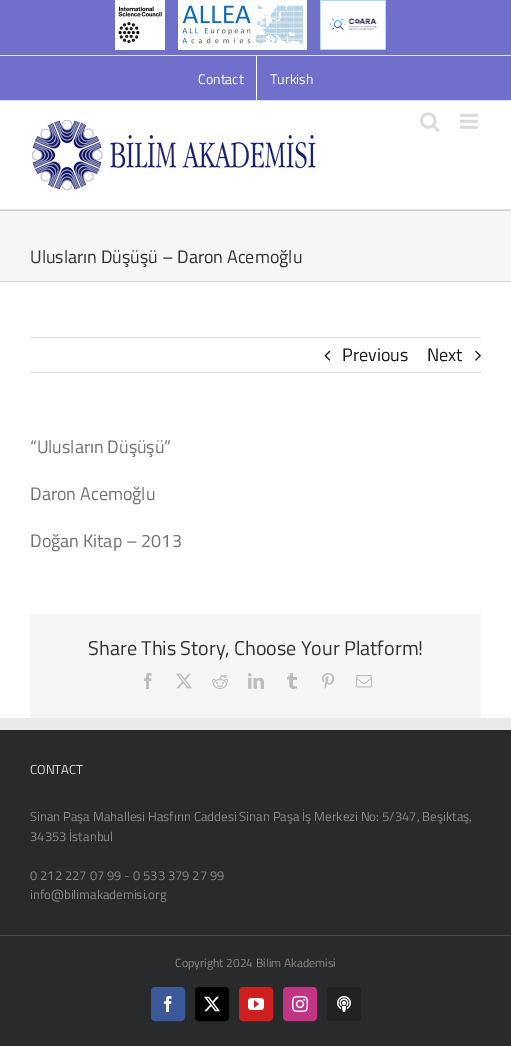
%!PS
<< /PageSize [511 1046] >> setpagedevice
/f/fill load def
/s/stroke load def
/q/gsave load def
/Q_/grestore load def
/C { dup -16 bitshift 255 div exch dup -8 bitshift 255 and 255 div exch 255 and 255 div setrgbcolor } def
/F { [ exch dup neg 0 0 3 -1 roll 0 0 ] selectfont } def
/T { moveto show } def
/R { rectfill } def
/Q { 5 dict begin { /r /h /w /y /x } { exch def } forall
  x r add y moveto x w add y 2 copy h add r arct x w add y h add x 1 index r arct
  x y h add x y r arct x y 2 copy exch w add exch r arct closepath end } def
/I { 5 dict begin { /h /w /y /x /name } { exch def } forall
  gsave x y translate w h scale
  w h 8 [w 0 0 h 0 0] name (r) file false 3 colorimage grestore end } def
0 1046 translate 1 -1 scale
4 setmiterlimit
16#FFFFFF C
0 0 511 1046 R
16#7070CC C
0 0 511 100 R
16#E1E1E1 C
0 100 511 1 R
0 55 511 1 R
(1.rgb) 115 0 50 50 I
(2.rgb) 178 0 129 50 I
(3.rgb) 320 0 66 50 I
/TitilliumWeb-Regular 14 F
16#FFFFFF C
(Contact) 198 84 T
256 56 1 44 R
(Turkish) 270 84 T
16#E1E1E1 C
0 209 511 1 R
(4.rgb) 30 119 289 72 I
(5.rgb) 420 112 20 20 I
(6.rgb) 460 113 18 16 I
16#F6F6F6 C
0 211 511 70 R
16#D2D3D4 C
0 210 511 1 R
0 281 511 1 R
/TitilliumWeb-Regular 18 F
16#333333 C
(Ulusların Düşüşü – Daron Acemoğlu) 30 263 T
16#E0DEDE C
30 337 451 1 R
30 372 451 1 R
(7.rgb) 324 350 7 11 I
16#1A1A1A C
(Previous) 342 361 T
(Next) 427 361 T
(8.rgb) 475 350 6 11 I
16#747474 C
(“Ulusların Düşüşü”) 30 453 T
(Daron Acemoğlu) 30 500 T
(Doğan Kitap – 2013) 30 547 T
16#F6F6F6 C
30 614 451 104 R
/TitilliumWeb-Regular 20 F
16#333333 C
(Share This Story, Choose Your Platform!) 88 655 T
(9.rgb) 144 673 8 16 I
(10.rgb) 176 673 16 16 I
(11.rgb) 212 675 16 14 I
(12.rgb) 248 673 16 16 I
(13.rgb) 287 673 10 16 I
(14.rgb) 321 673 14 16 I
(15.rgb) 356 675 16 13 I
16#282A2B C
0 730 511 205 R
16#E9EAEE C
0 718 511 12 R
/TitilliumWeb-Regular 13 F
16#DDDDDD C
(CONTACT) 30 774 T
16#8C8989 C
(Sinan Paşa Mahallesi Hasfırın Caddesi Sinan Paşa İş Merkezi No: 5/347, Beşiktaş,) 30 821 T
(34353 İstanbul) 30 841 T
(0 212 227 07 99 - 0 533 379 27 99) 30 880 T
(info@bilimakademisi.org) 30 899 T
16#282A2B C
0 936 511 110 R
16#4B4C4D C
0 935 511 1 R
/TitilliumWeb-Regular 12 F
16#8C8989 C
(Copyright 2024 Bilim Akademisi) 175 967 T
16#3B5998 C
151.5 987.5 33 33 3.5 Q q f Q_
s
(16.rgb) 164 996 8 16 I
16#000000 C
195.5 987.5 33 33 3.5 Q q f Q_
s
(17.rgb) 204 996 16 16 I
16#CD201F C
239.5 987.5 33 33 3.5 Q q f Q_
s
(18.rgb) 248 998 16 12 I
16#C13584 C
283.5 987.5 33 33 3.5 Q q f Q_
s
(19.rgb) 292 996 16 16 I
16#222222 C
327 987 34 34 4 Q f
(20.rgb) 337 996 14 16 I
showpage
